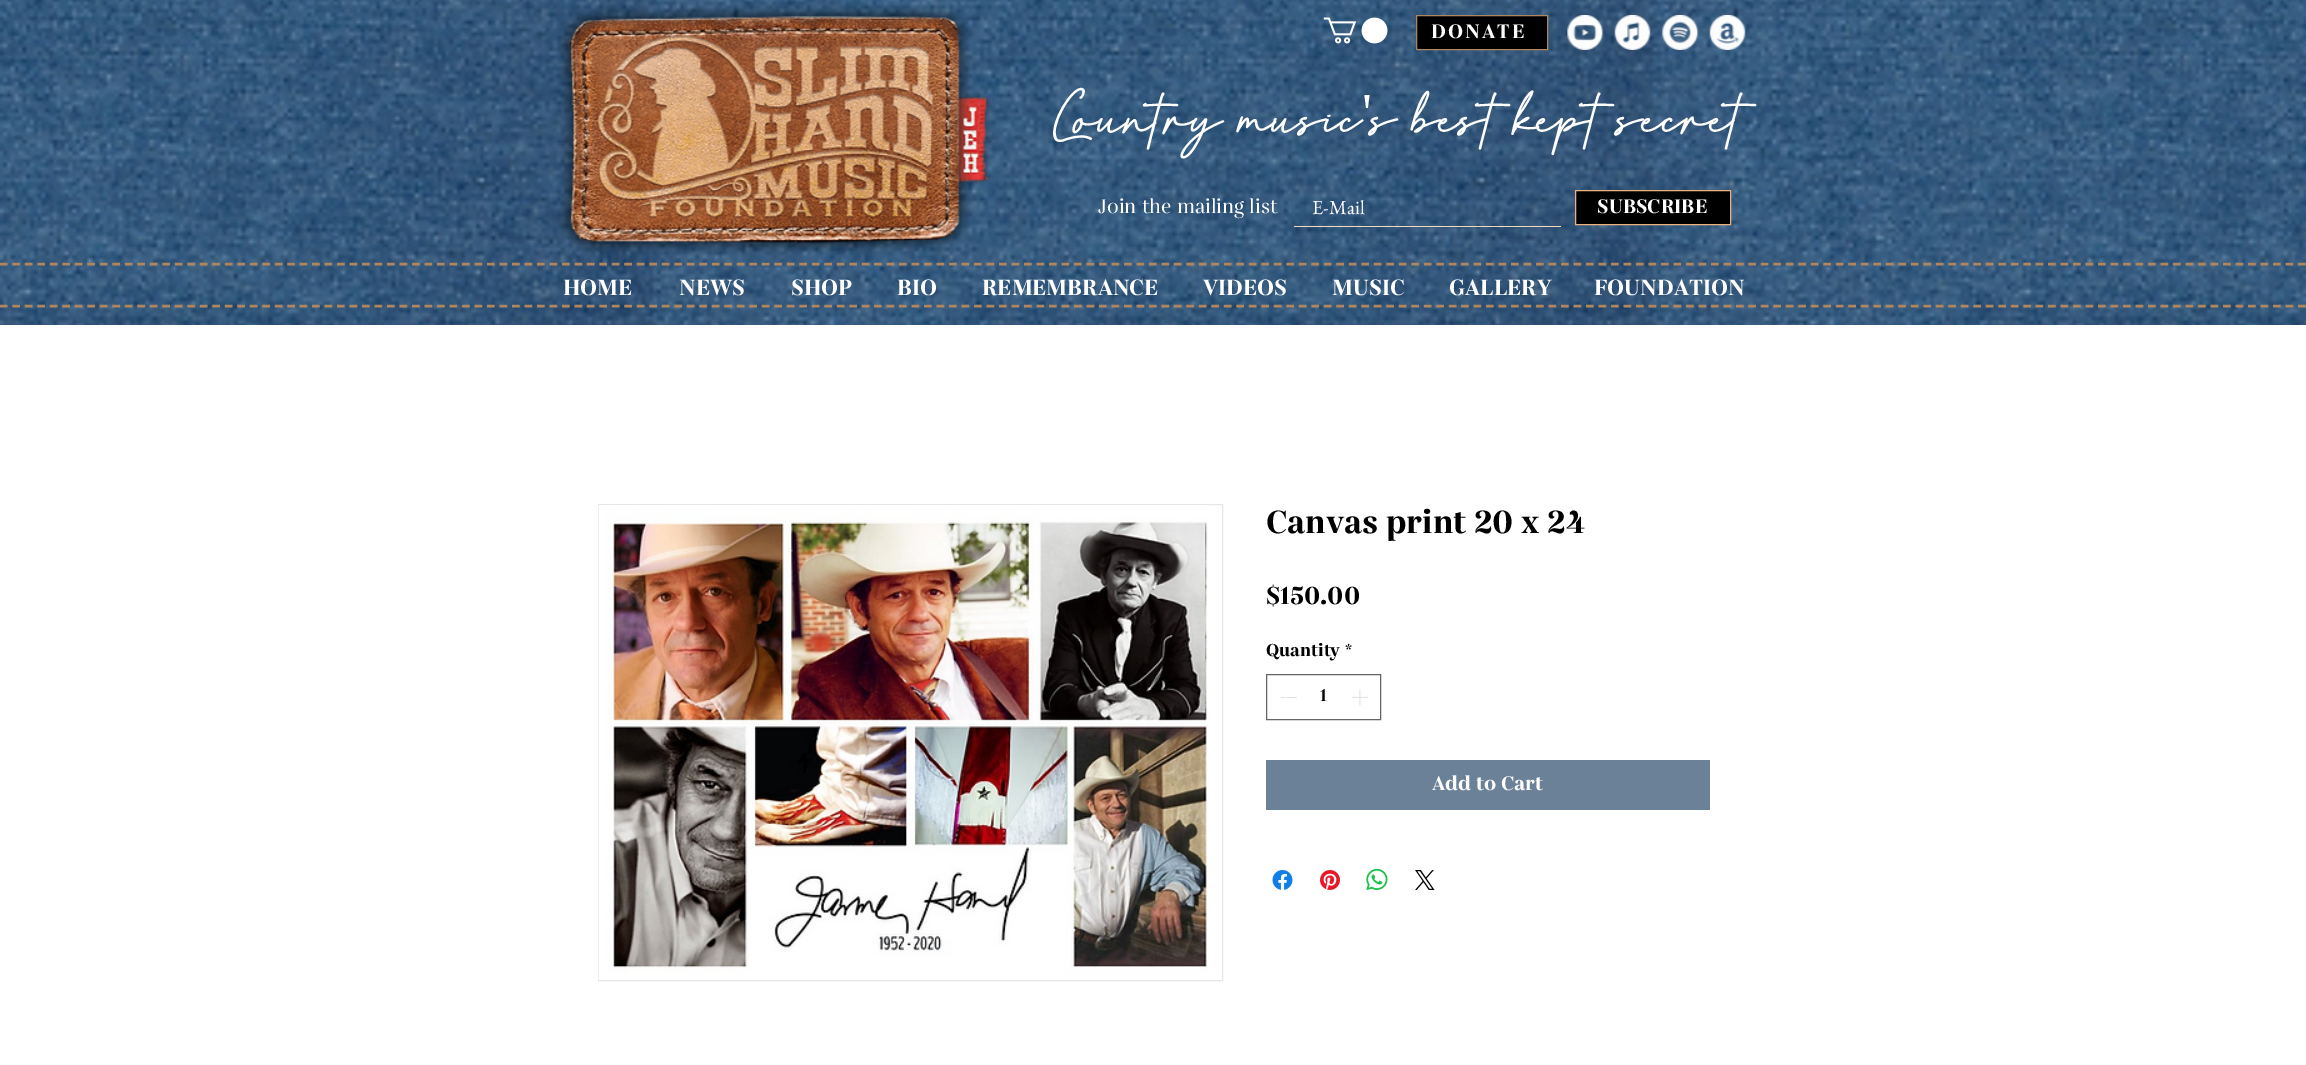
%!PS
<< /PageSize [2306 1065] >> setpagedevice
/m/moveto load def
/l/rlineto load def
/z/closepath load def
/f/fill load def
/s/stroke load def
/q/gsave load def
/Q_/grestore load def
/w/setlinewidth load def
/C { dup -16 bitshift 255 div exch dup -8 bitshift 255 and 255 div exch 255 and 255 div setrgbcolor } def
/F { [ exch dup neg 0 0 3 -1 roll 0 0 ] selectfont } def
/T { moveto show } def
/R { rectfill } def
/I { 5 dict begin { /h /w /y /x /name } { exch def } forall
  gsave x y translate w h scale
  w h 8 [w 0 0 h 0 0] name (r) file false 3 colorimage grestore end } def
0 1065 translate 1 -1 scale
4 setmiterlimit
16#FFFFFF C
0 0 2306 1065 R
(1.rgb) 0 0 2306 325 I
(2.rgb) 559 5 432 250 I
(3.rgb) 1323 17 65 27 I
16#000000 C
1416.5 15.5 m 131 0 l 0 34 l -131 0 l z q f Q_
16#B0865F C
s
/Gabriela-Bold 20 F
16#FFFFFF C
1431 38 m 2 0 (DONATE) ashow
(4.rgb) 1567 15 37 35 I
(5.rgb) 1614 15 37 35 I
(6.rgb) 1662 15 37 35 I
(7.rgb) 1709 15 37 35 I
/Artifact-Regular 55 F
(Country music) 1053 131 T
/LiberationSerif-Regular 55 F
(') 1362 131 T
/Artifact-Regular 55 F
(s best kept secret) 1372 131 T
/Gabriela-Medium 20 F
(Join the mailing list) 1098 213 T
16#F4D8BD C
1294 226 267 1 R
/EBGaramond-Regular 20 F
16#FFFFFF C
(E-Mail) 1312 214 T
16#000000 C
1575.5 190.5 m 155 0 l 0 34 l -155 0 l z q f Q_
16#EAB37F C
s
/Gabriela-Bold 20 F
16#FFFFFF C
(SUBSCRIBE) 1597 213 T
16#B0865F C
2.5 w
[7.5 4.99] 0 setdash
0 264 m 2306 0 l s
/Gabriela-Bold 22.5 F
16#FFFFFF C
(HOME) 563 295 T
(NEWS) 679 295 T
(SHOP) 791 295 T
(BIO) 897 295 T
(REMEMBRANCE) 982 295 T
(VIDEOS) 1203 295 T
(MUSIC) 1332 295 T
(GALLERY) 1449 295 T
(FOUNDATION) 1594 295 T
16#B0865F C
0 306 m 2306 0 l s
16#E8E6E6 C
1 w
[] 0 setdash
598.5 504.5 624 476 rectstroke
(8.rgb) 598 505 610 475 I
/Gabriela-Bold 32.5 F
16#000000 C
(Canvas print 20 x 24) 1266 533 T
/Gabriela-Bold 25 F
($150.00) 1266 604 T
/Gabriela-Bold 17.5 F
(Quantity) 1266 656 T
(*) 1345 656 T
16#666666 C
1266.5 674.5 114 45 rectstroke
16#E3E3E3 C
1281 697 16 1 R
16#000000 C
(1) 1320 701 T
(9.rgb) 1351 689 17 17 I
16#6A8198 C
1266 760 444 50 R
/Gabriela-Bold 20 F
16#FFFFFF C
(Add to Cart) 1432 790 T
(10.rgb) 1272 870 21 20 I
(11.rgb) 1320 870 20 20 I
(12.rgb) 1366 868 22 23 I
(13.rgb) 1415 870 20 20 I
showpage
